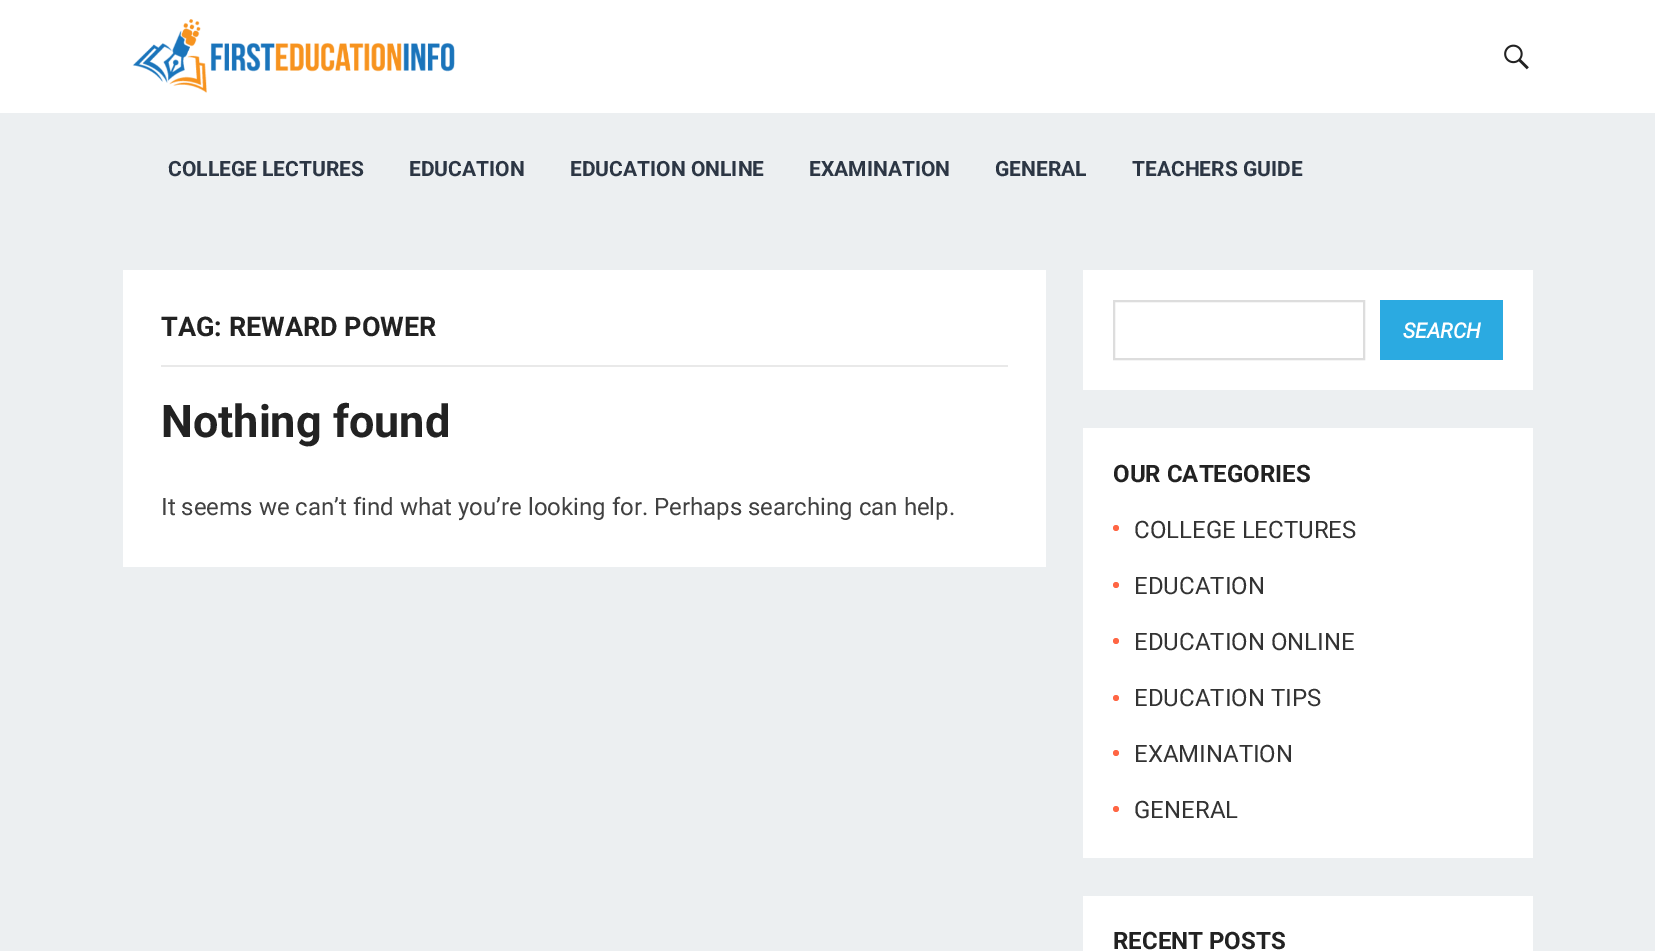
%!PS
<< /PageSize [1655 951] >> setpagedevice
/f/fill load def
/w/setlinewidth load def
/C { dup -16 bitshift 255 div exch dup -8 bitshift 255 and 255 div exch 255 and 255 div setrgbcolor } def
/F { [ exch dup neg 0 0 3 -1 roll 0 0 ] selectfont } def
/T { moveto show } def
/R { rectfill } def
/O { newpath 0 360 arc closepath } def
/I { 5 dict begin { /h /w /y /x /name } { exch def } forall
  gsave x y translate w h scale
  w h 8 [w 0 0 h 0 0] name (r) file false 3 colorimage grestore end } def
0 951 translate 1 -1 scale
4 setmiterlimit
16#ECEFF1 C
0 0 1655 951 R
16#FFFFFF C
0 0 1655 113 R
(1.rgb) 132 19 323 74 I
(2.rgb) 1504 44 25 26 I
/Roboto-Bold 21 F
16#2C3644 C
(COLLEGE LECTURES) 168 176 T
(EDUCATION) 409 176 T
(EDUCATION ONLINE) 570 176 T
(EXAMINATION) 809 176 T
(GENERAL) 995 176 T
(TEACHERS GUIDE) 1132 176 T
16#FFFFFF C
123 270 923 297 R
16#E9E9E9 C
161 365 847 2 R
/Roboto-Bold 27 F
16#222222 C
(TAG: REWARD POWER) 161 336 T
/Roboto-Bold 45 F
(Nothing found) 161 437 T
/Roboto-Regular 24 F
16#414141 C
(It seems we can’t find what you’re looking for. Perhaps searching can help.) 161 515 T
16#FFFFFF C
1083 270 450 120 R
16#DDDDDD C
2 w
1114 301 250 58 rectstroke
16#2BAAE1 C
1380 300 123 60 R
/Roboto-BoldItalic 21 F
16#FFFFFF C
(SEARCH) 1403 338 T
1083 428 450 430 R
/Roboto-Bold 24 F
16#222222 C
(OUR CATEGORIES) 1113 482 T
16#FF6644 C
1116 528 3 O f
/Roboto-Regular 24 F
16#333333 C
(COLLEGE LECTURES) 1134 538 T
16#FF6644 C
1116 585 3 O f
16#333333 C
(EDUCATION) 1134 594 T
16#FF6644 C
1116 641 3 O f
16#333333 C
(EDUCATION ONLINE) 1134 650 T
16#FF6644 C
1116 698 3 O f
16#333333 C
(EDUCATION TIPS) 1134 706 T
16#FF6644 C
1116 753 3 O f
16#333333 C
(EXAMINATION) 1134 762 T
16#FF6644 C
1116 809 3 O f
16#333333 C
(GENERAL) 1134 818 T
16#FFFFFF C
1083 896 450 55 R
/Roboto-Bold 24 F
16#222222 C
(RECENT POSTS) 1113 949 T
showpage
